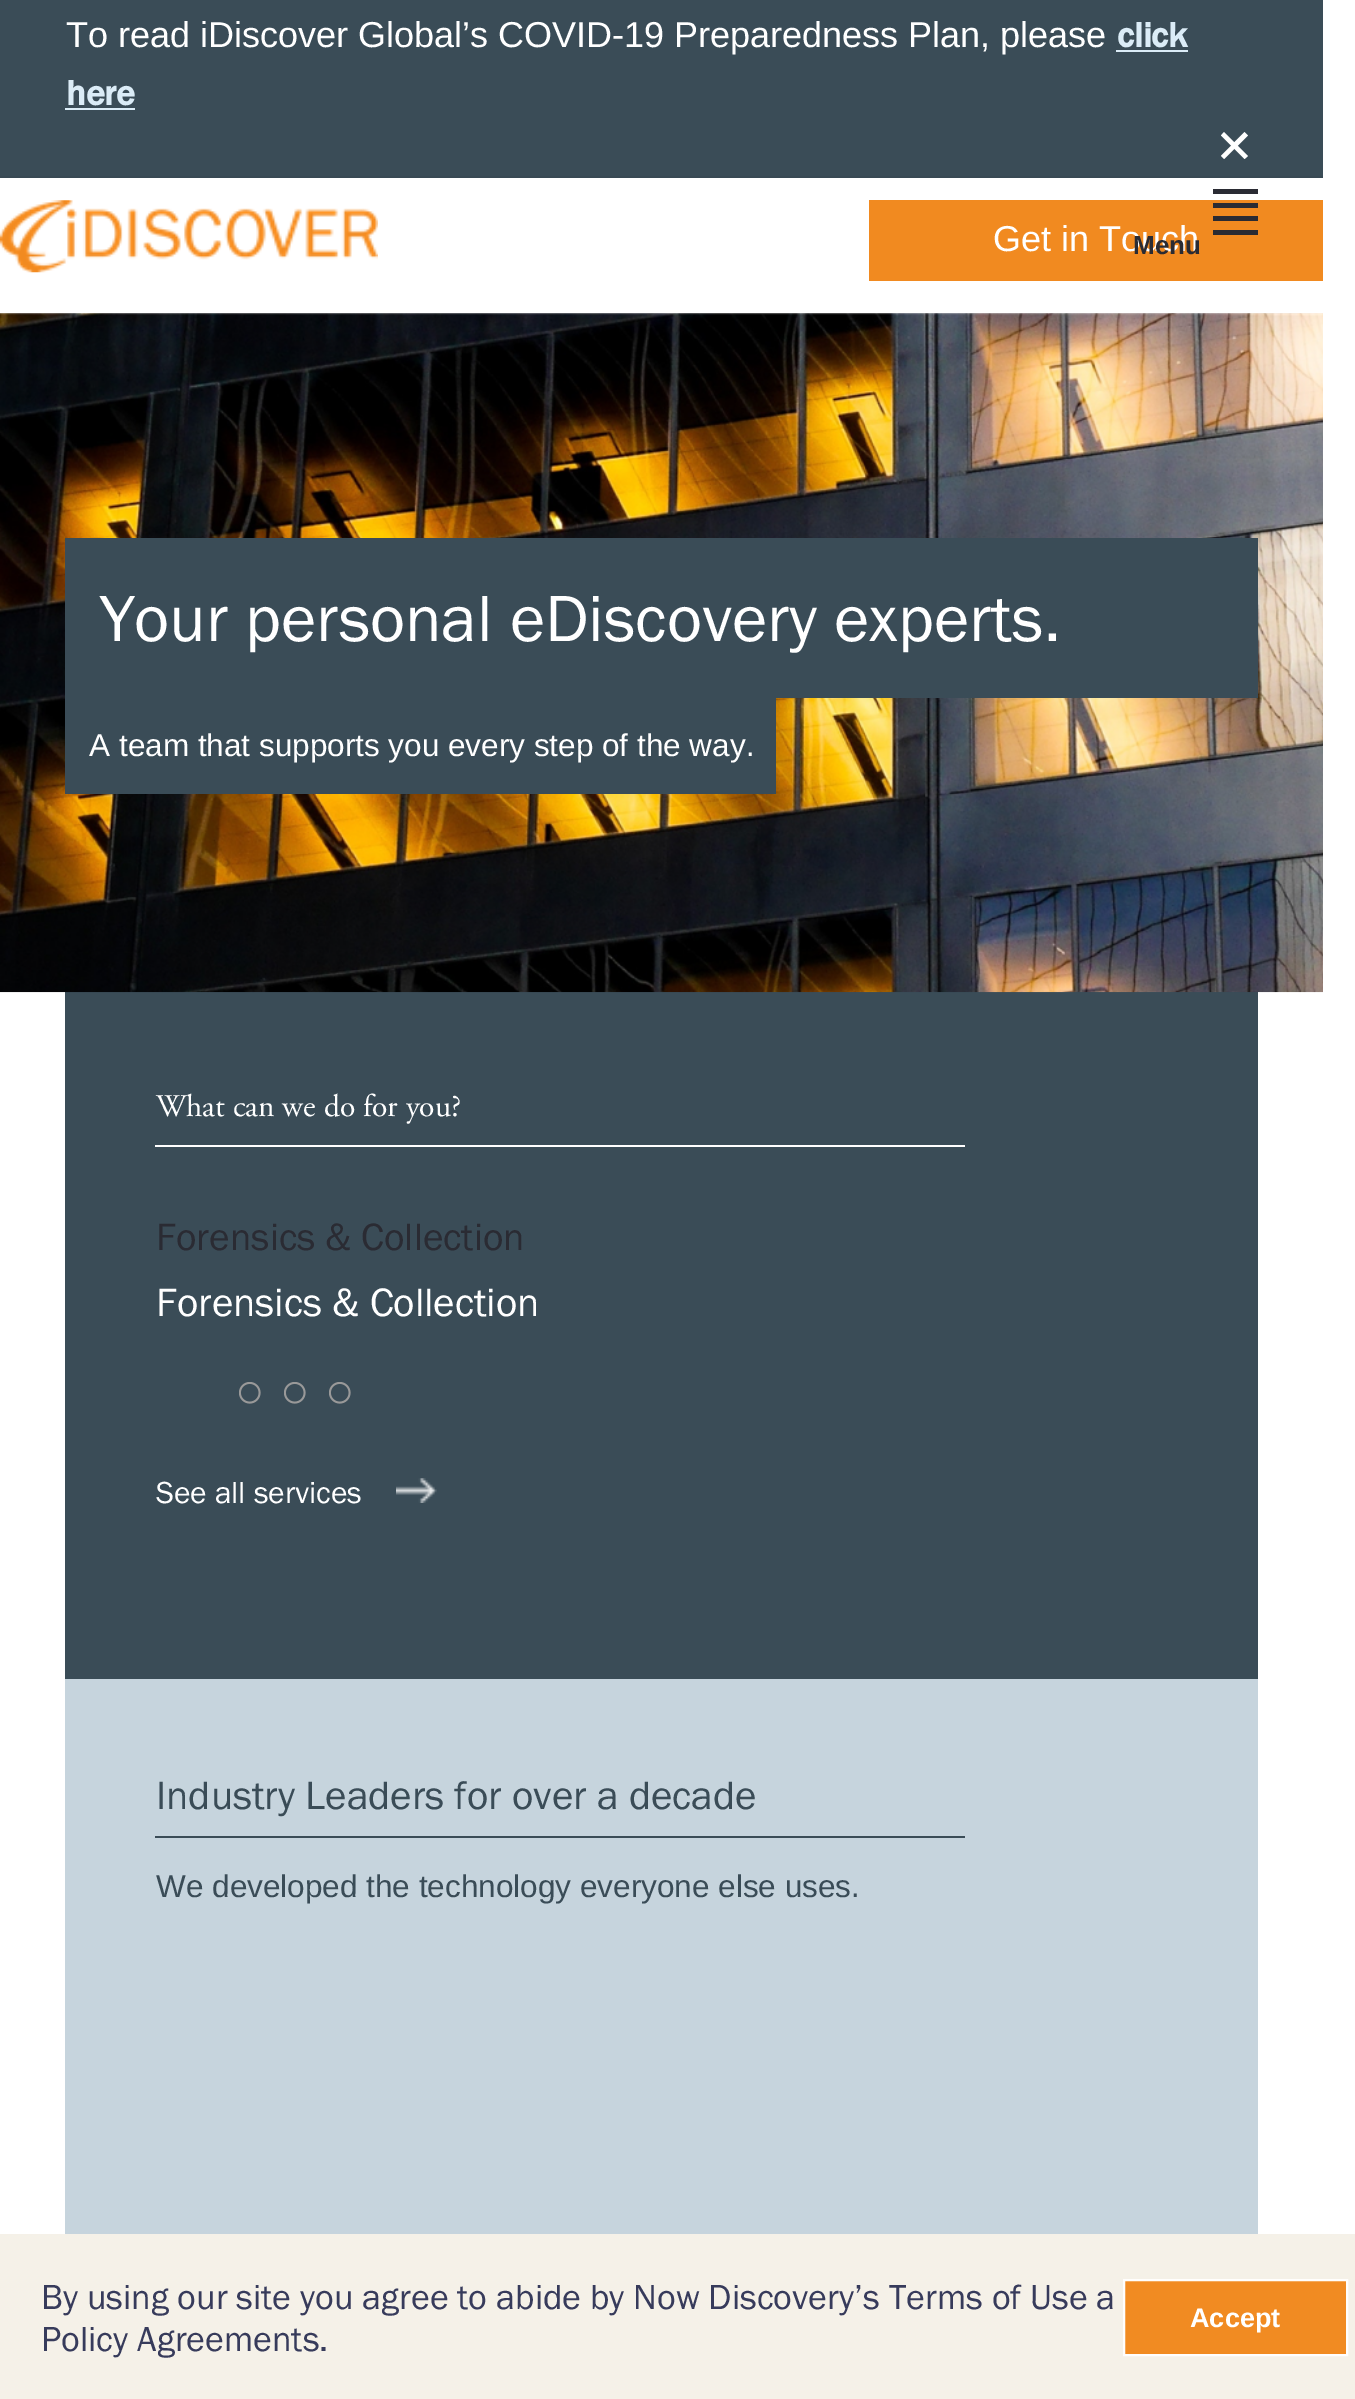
%!PS
<< /PageSize [1355 2399] /PageUsesTransparency true >> setpagedevice
/m/moveto load def
/l/rlineto load def
/z/closepath load def
/f/fill load def
/s/stroke load def
/w/setlinewidth load def
/C { dup -16 bitshift 255 div exch dup -8 bitshift 255 and 255 div exch 255 and 255 div setrgbcolor } def
/F { [ exch dup neg 0 0 3 -1 roll 0 0 ] selectfont } def
/T { moveto show } def
/R { rectfill } def
/A { dup .setfillconstantalpha .setstrokeconstantalpha } def
/I { 5 dict begin { /h /w /y /x /name } { exch def } forall
  gsave x y translate w h scale
  w h 8 [w 0 0 h 0 0] name (r) file false 3 colorimage grestore end } def
0 .pushpdf14devicefilter
0 2399 translate 1 -1 scale
4 setmiterlimit
16#FFFFFF C
0 0 1355 2399 R
16#F5F1E8 C
0 2234 1355 165 R
16#3A4C57 C
0 0 1323 176 R
16#384954 C
0 176 1323 2 R
/LiberationSans-Regular 36 F
16#FFFFFF C
(To read iDiscover Global’s COVID-19 Preparedness Plan, please) 66 47 T
/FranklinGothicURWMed-Bold 36 F
16#DBECF7 C
(click) 1117 47 T
1116 50 72 2 R
(here) 66 105 T
65 108 70 2 R
16#FFFFFF C
1221 135.5 m 3 -3.5 l 24 24 l -3.5 3 l z f
1244.5 132 m 3.5 3.5 l -24 23.5 l -3 -3 l z f
(1.rgb) 0 200 378 73 I
16#F18A20 C
869 200 454 81 R
/LiberationSans-Regular 36 F
16#FFFFFF C
(Get in Touch) 993 251 T
16#2A2B33 C
1213 230 45 5 R
1213 216 45 5 R
1213 203 45 5 R
1213 189 45 5 R
/LiberationSans-Bold 26 F
(Menu) 1133 254 T
16#3A4C57 C
65 992 1193 687 R
(2.rgb) 0 313 1323 680 I
65 538 1193 160 R
/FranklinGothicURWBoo-Regular 67.5 F
16#FFFFFF C
(Your personal eDiscovery experts.) 100 641 T
16#3A4C57 C
65 698 711 96 R
/LiberationSans-Regular 31.5 F
16#FFFFFF C
(A team that supports you every step of the way.) 89 756 T
155 1145 810 2 R
/AdobeGaramond-Regular 31.5 F
(What can we do for you?) 156 1116 T
/FranklinGothicURWBoo-Regular 39.4 F
16#2A2B33 C
(Forensics & Collection) 156 1250 T
/FranklinGothicURWBoo-Regular 41 F
16#FFFFFF C
(Forensics & Collection) 156 1316 T
(3.rgb) 239 1382 22 22 I
(3.rgb) 284 1382 22 22 I
(3.rgb) 329 1382 22 22 I
/FranklinGothicURWBoo-Regular 31.5 F
(See all services) 156 1503 T
(4.rgb) 396 1478 41 25 I
16#C6D4DD C
65 1679 1193 555 R
16#3A4C57 C
155 1836 810 2 R
/FranklinGothicURWBoo-Regular 41 F
(Industry Leaders for over a decade) 156 1809 T
/LiberationSans-Regular 31.5 F
(We developed the technology everyone else uses.) 156 1897 T
/FranklinGothicURWBoo-Regular 36 F
16#373B5B C
(By using our site you agree to abide by Now Discovery’s Terms of Use a) 41 2309 T
(Policy Agreements.) 41 2351 T
0.99 A
16#F18A20 C
1124 2280 m 223 0 l 0 75 l -223 0 l z f
1 A
16#FFFEFD C
2 w
1124 2280 m 223 0 l 0 75 l -223 0 l z s
/LiberationSans-Bold 27 F
16#FFFFFF C
(Accept) 1190 2327 T
.poppdf14devicefilter showpage
